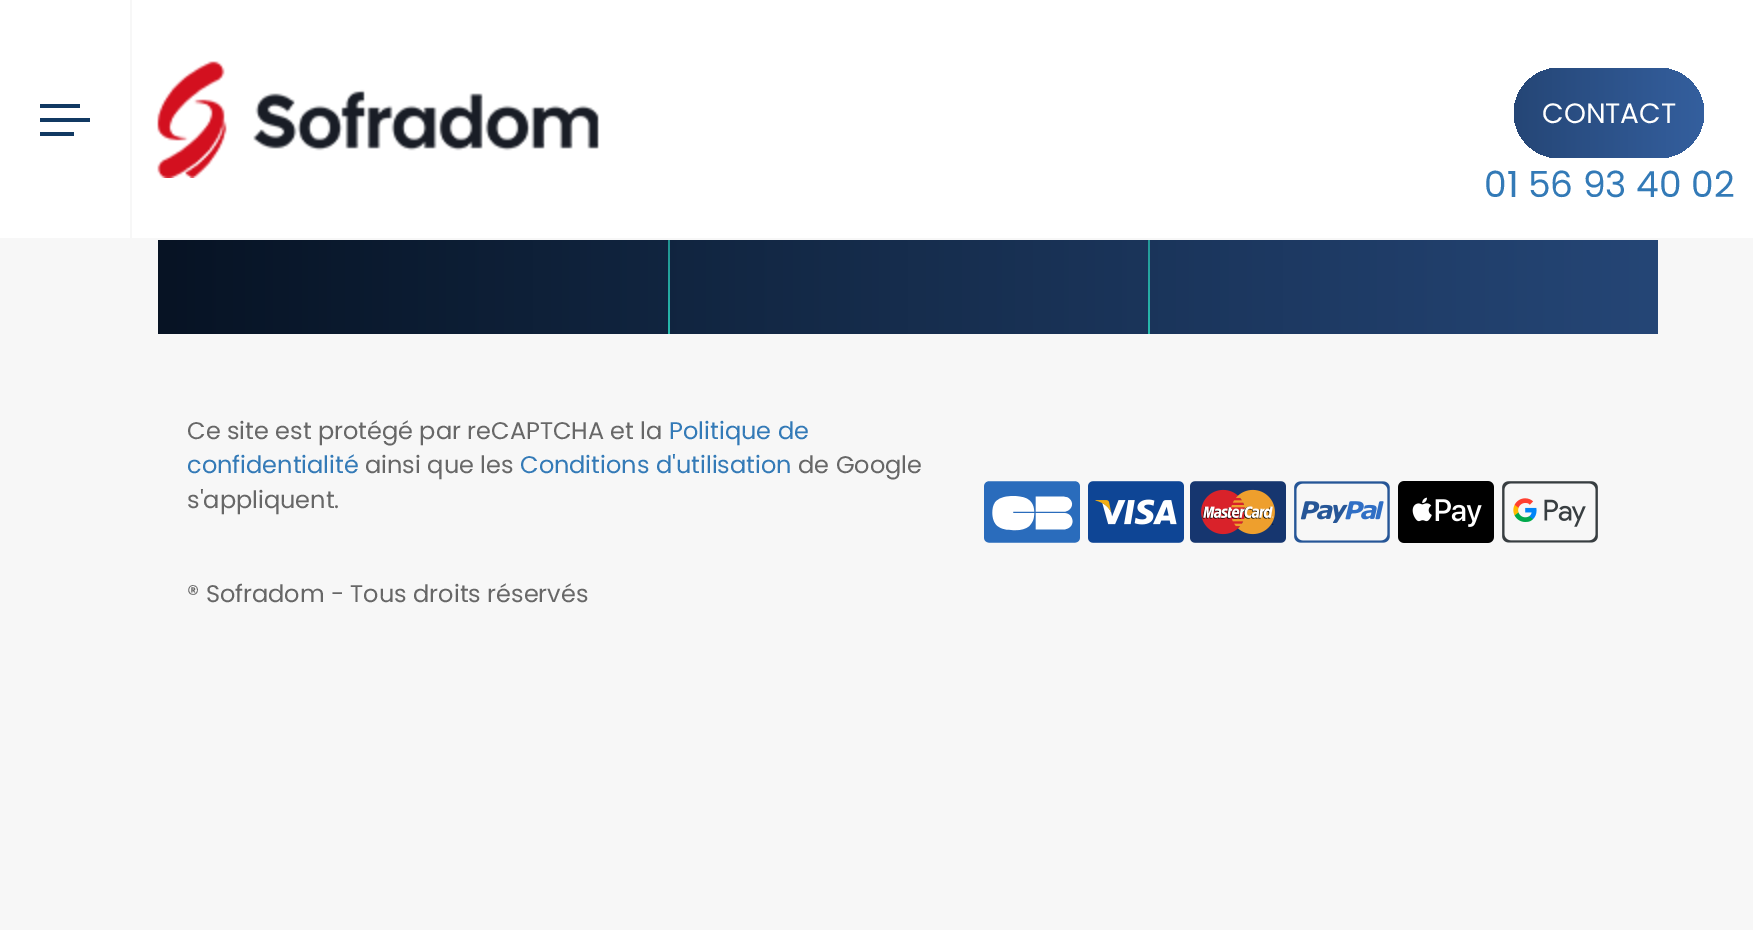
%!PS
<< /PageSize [1753 930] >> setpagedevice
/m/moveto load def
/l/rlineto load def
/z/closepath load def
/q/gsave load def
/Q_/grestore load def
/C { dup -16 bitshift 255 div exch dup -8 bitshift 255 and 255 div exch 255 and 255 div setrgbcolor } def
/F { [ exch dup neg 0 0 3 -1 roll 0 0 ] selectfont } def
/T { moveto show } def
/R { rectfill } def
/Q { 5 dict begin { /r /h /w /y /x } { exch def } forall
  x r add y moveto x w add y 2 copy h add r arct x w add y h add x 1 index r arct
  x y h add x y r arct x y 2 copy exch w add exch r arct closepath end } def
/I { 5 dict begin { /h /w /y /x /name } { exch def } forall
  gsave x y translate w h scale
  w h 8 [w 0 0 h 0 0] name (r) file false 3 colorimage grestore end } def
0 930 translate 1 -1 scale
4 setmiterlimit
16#F7F7F7 C
0 0 1753 930 R
16#FFFFFF C
0 0 1753 238 R
16#F7F7F7 C
130 0 2 238 R
16#113962 C
40 118 50 4 R
40 104 40 4 R
40 132 34 4 R
(1.rgb) 157 61 442 117 I
q 1514 68 190 90 45 Q clip newpath
<< /ShadingType 2 /ColorSpace /DeviceRGB /Coords [1514 158 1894 158] /Extend [true true] /Function << /FunctionType 3 /Domain [0 1] /Functions [<< /FunctionType 2 /Domain [0 1] /C0 [.145 .275 .463] /C1 [.204 .373 .62] /N 1 >> << /FunctionType 2 /Domain [0 1] /C0 [.204 .373 .62] /C1 [.027 .075 .141] /N 1 >>] /Bounds [.5] /Encode [0 1 0 1] >> >> shfill Q_
/Poppins-Regular 28 F
16#FFFFFF C
(CONTACT) 1542 123 T
/Poppins-Regular 36 F
16#337AB7 C
(01 56 93 40 02) 1484 197 T
q 158 240 m 1500 0 l 0 94 l -1500 0 l z clip newpath
<< /ShadingType 2 /ColorSpace /DeviceRGB /Coords [158 -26 1658 -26] /Extend [true true] /Function << /FunctionType 2 /Domain [0 1] /C0 [.027 .075 .141] /C1 [.145 .275 .463] /N 1 >> >> shfill Q_
(2.rgb) 668 240 2 94 I
(3.rgb) 1148 240 2 94 I
/Poppins-Regular 24 F
16#676767 C
(Ce site est protégé par reCAPTCHA et la) 187 439 T
16#337AB7 C
(Politique de) 669 439 T
(confidentialité) 187 473 T
16#676767 C
(ainsi que les) 365 473 T
16#337AB7 C
(Conditions d'utilisation) 520 473 T
16#676767 C
(de Google) 798 473 T
(s'appliquent.) 187 508 T
(® Sofradom - Tous droits réservés) 187 602 T
(4.rgb) 984 481 96 62 I
(5.rgb) 1088 481 96 62 I
(6.rgb) 1190 481 96 62 I
(7.rgb) 1294 481 96 62 I
(8.rgb) 1398 481 96 62 I
(9.rgb) 1502 481 96 62 I
showpage
